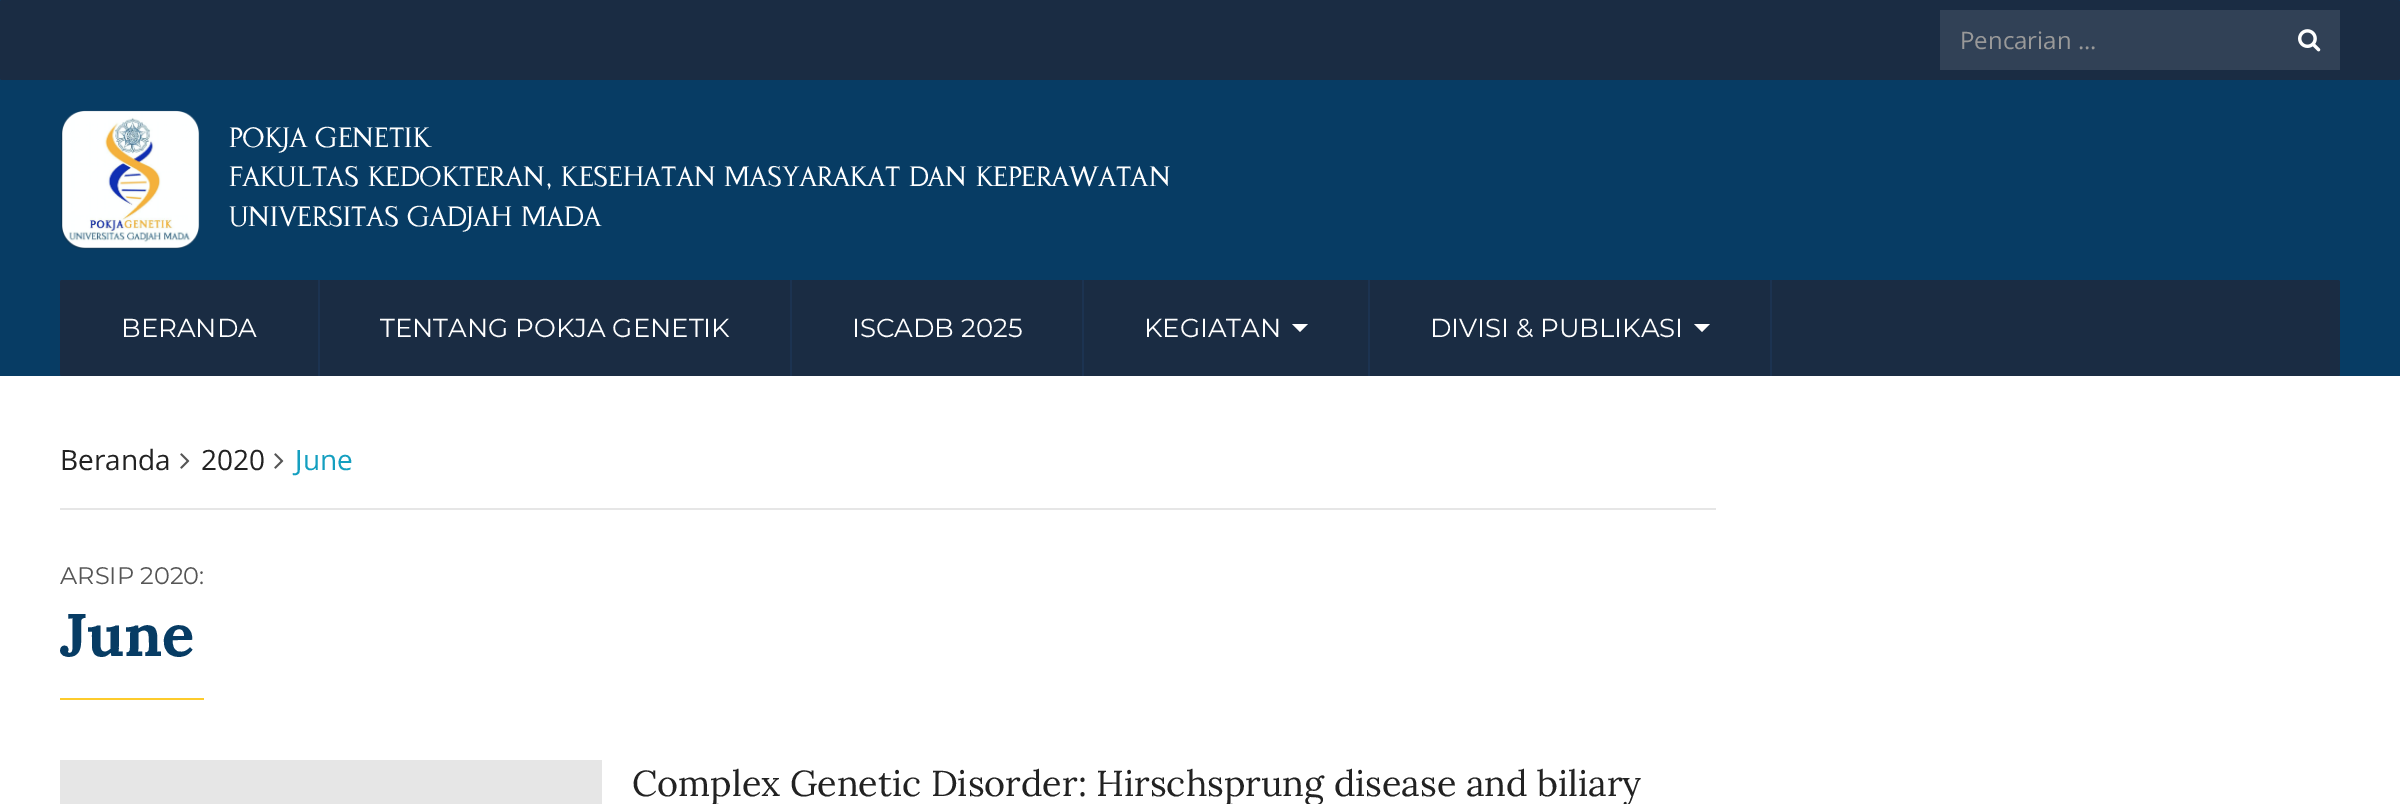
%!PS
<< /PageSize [2400 804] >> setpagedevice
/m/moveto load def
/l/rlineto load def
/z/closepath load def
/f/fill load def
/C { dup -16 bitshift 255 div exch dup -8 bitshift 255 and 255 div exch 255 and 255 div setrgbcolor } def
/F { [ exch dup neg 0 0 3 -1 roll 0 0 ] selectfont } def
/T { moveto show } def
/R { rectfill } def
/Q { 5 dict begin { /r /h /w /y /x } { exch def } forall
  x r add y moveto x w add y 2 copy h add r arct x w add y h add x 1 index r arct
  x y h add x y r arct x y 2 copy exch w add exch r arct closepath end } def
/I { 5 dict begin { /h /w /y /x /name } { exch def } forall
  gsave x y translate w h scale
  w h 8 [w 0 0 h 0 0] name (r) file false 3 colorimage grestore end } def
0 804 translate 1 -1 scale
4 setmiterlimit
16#FFFFFF C
0 0 2400 804 R
16#073C64 C
0 0 2400 376 R
16#1A2C43 C
0 0 2400 80 2 Q f
16#314156 C
1940 10 400 60 R
/OpenSans-Regular 24 F
16#999999 C
(Pencarian ...) 1960 49 T
(1.rgb) 2298 29 23 23 I
(2.rgb) 61 110 139 139 I
/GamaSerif-Regular 28 F
16#FFFFFF C
(POKJA GENETIK) 229 147 T
(FAKULTAS KEDOKTERAN, KESEHATAN MASYARAKAT DAN KEPERAWATAN) 229 186 T
(UNIVERSITAS GADJAH MADA) 229 226 T
16#1A2C43 C
60 280 2280 96 2 Q f
16#1C3351 C
318 280 2 96 R
/Montserrat-Regular 26 F
16#FFFFFF C
(BERANDA) 121 337 T
16#1C3351 C
790 280 2 96 R
16#FFFFFF C
(TENTANG POKJA GENETIK) 380 337 T
16#1C3351 C
1082 280 2 96 R
16#FFFFFF C
(ISCADB 2025) 852 337 T
16#1C3351 C
1368 280 2 96 R
16#FFFFFF C
(KEGIATAN) 1144 337 T
1292 324 m 16 0 l -8 8 l z f
16#1C3351 C
1770 280 2 96 R
16#FFFFFF C
(DIVISI & PUBLIKASI) 1430 337 T
1694 324 m 16 0 l -8 8 l z f
16#E6E6E6 C
60 508 1656 2 R
/OpenSans-Regular 28 F
16#222222 C
(Beranda) 60 470 T
(3.rgb) 180 453 10 16 I
(2020) 201 470 T
(3.rgb) 274 453 10 16 I
16#149FC0 C
(June) 295 470 T
/Montserrat-Regular 24 F
16#555555 C
(ARSIP 2020:) 60 584 T
/Lora-Bold 60 F
16#073C64 C
(June) 60 656 T
16#FDCB2C C
60 698 144 2 R
16#E6E6E6 C
60 760 542 44 R
/Lora-Regular 36 F
16#222222 C
(Complex Genetic Disorder: Hirschsprung disease and biliary) 632 796 T
showpage
